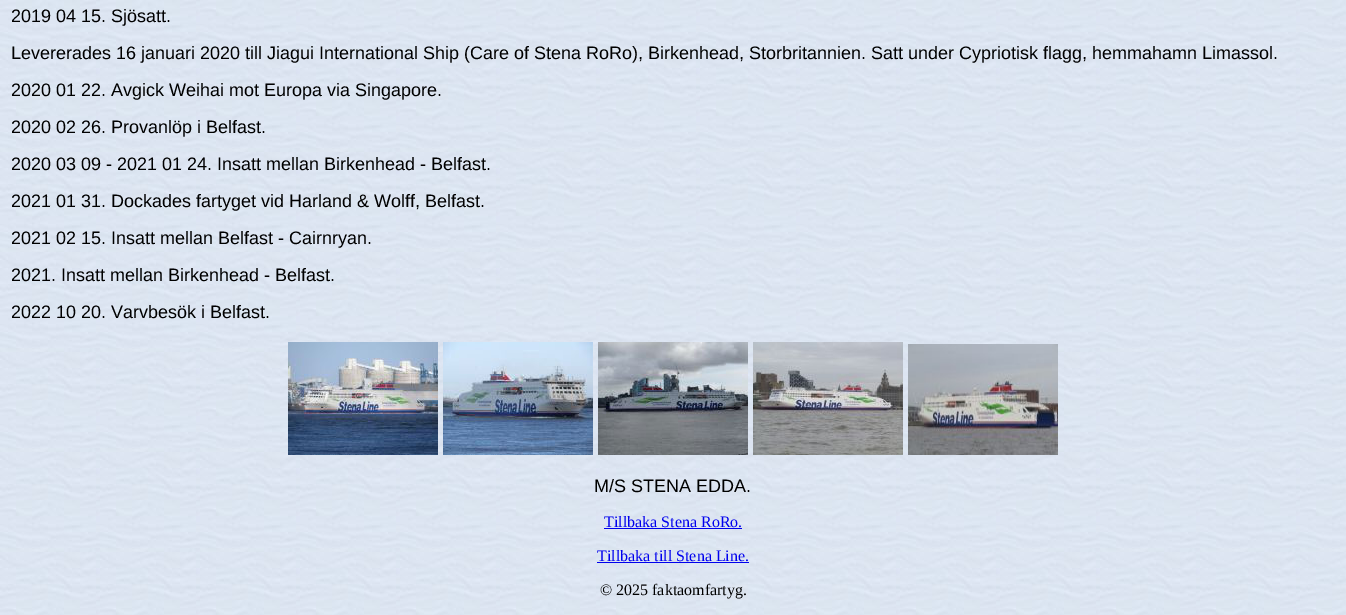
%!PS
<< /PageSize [1346 615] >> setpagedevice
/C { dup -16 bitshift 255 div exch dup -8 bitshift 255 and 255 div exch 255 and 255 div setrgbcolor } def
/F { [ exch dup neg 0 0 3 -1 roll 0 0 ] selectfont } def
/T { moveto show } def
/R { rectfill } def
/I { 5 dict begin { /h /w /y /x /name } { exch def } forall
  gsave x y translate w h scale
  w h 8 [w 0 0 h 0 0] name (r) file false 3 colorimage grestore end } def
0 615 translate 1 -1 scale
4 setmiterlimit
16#FFFFFF C
0 0 1346 615 R
(1.rgb) 0 0 1346 615 I
/LiberationSans-Regular 18 F
16#000000 C
(2019 04 15. Sjösatt.) 11 22 T
(Levererades 16 januari 2020 till Jiagui International Ship \(Care of Stena RoRo\), Birkenhead, Storbritannien. Satt under Cypriotisk flagg, hemmahamn Limassol.) 11 59 T
(2020 01 22. Avgick Weihai mot Europa via Singapore.) 11 96 T
(2020 02 26. Provanlöp i Belfast.) 11 133 T
(2020 03 09 - 2021 01 24. Insatt mellan Birkenhead - Belfast.) 11 170 T
(2021 01 31. Dockades fartyget vid Harland & Wolff, Belfast.) 11 207 T
(2021 02 15. Insatt mellan Belfast - Cairnryan.) 11 244 T
(2021. Insatt mellan Birkenhead - Belfast.) 11 281 T
(2022 10 20. Varvbesök i Belfast.) 11 318 T
(2.rgb) 288 342 150 113 I
(3.rgb) 443 342 150 113 I
(4.rgb) 598 342 150 113 I
(5.rgb) 753 342 150 113 I
(6.rgb) 908 344 150 111 I
(M/S STENA EDDA.) 594 492 T
/LiberationSerif-Regular 16 F
16#0000EE C
(Tillbaka Stena RoRo.) 604 527 T
604 528 138 1 R
(Tillbaka till Stena Line.) 597 561 T
597 562 152 1 R
16#000000 C
(© 2025 faktaomfartyg.) 600 595 T
showpage
